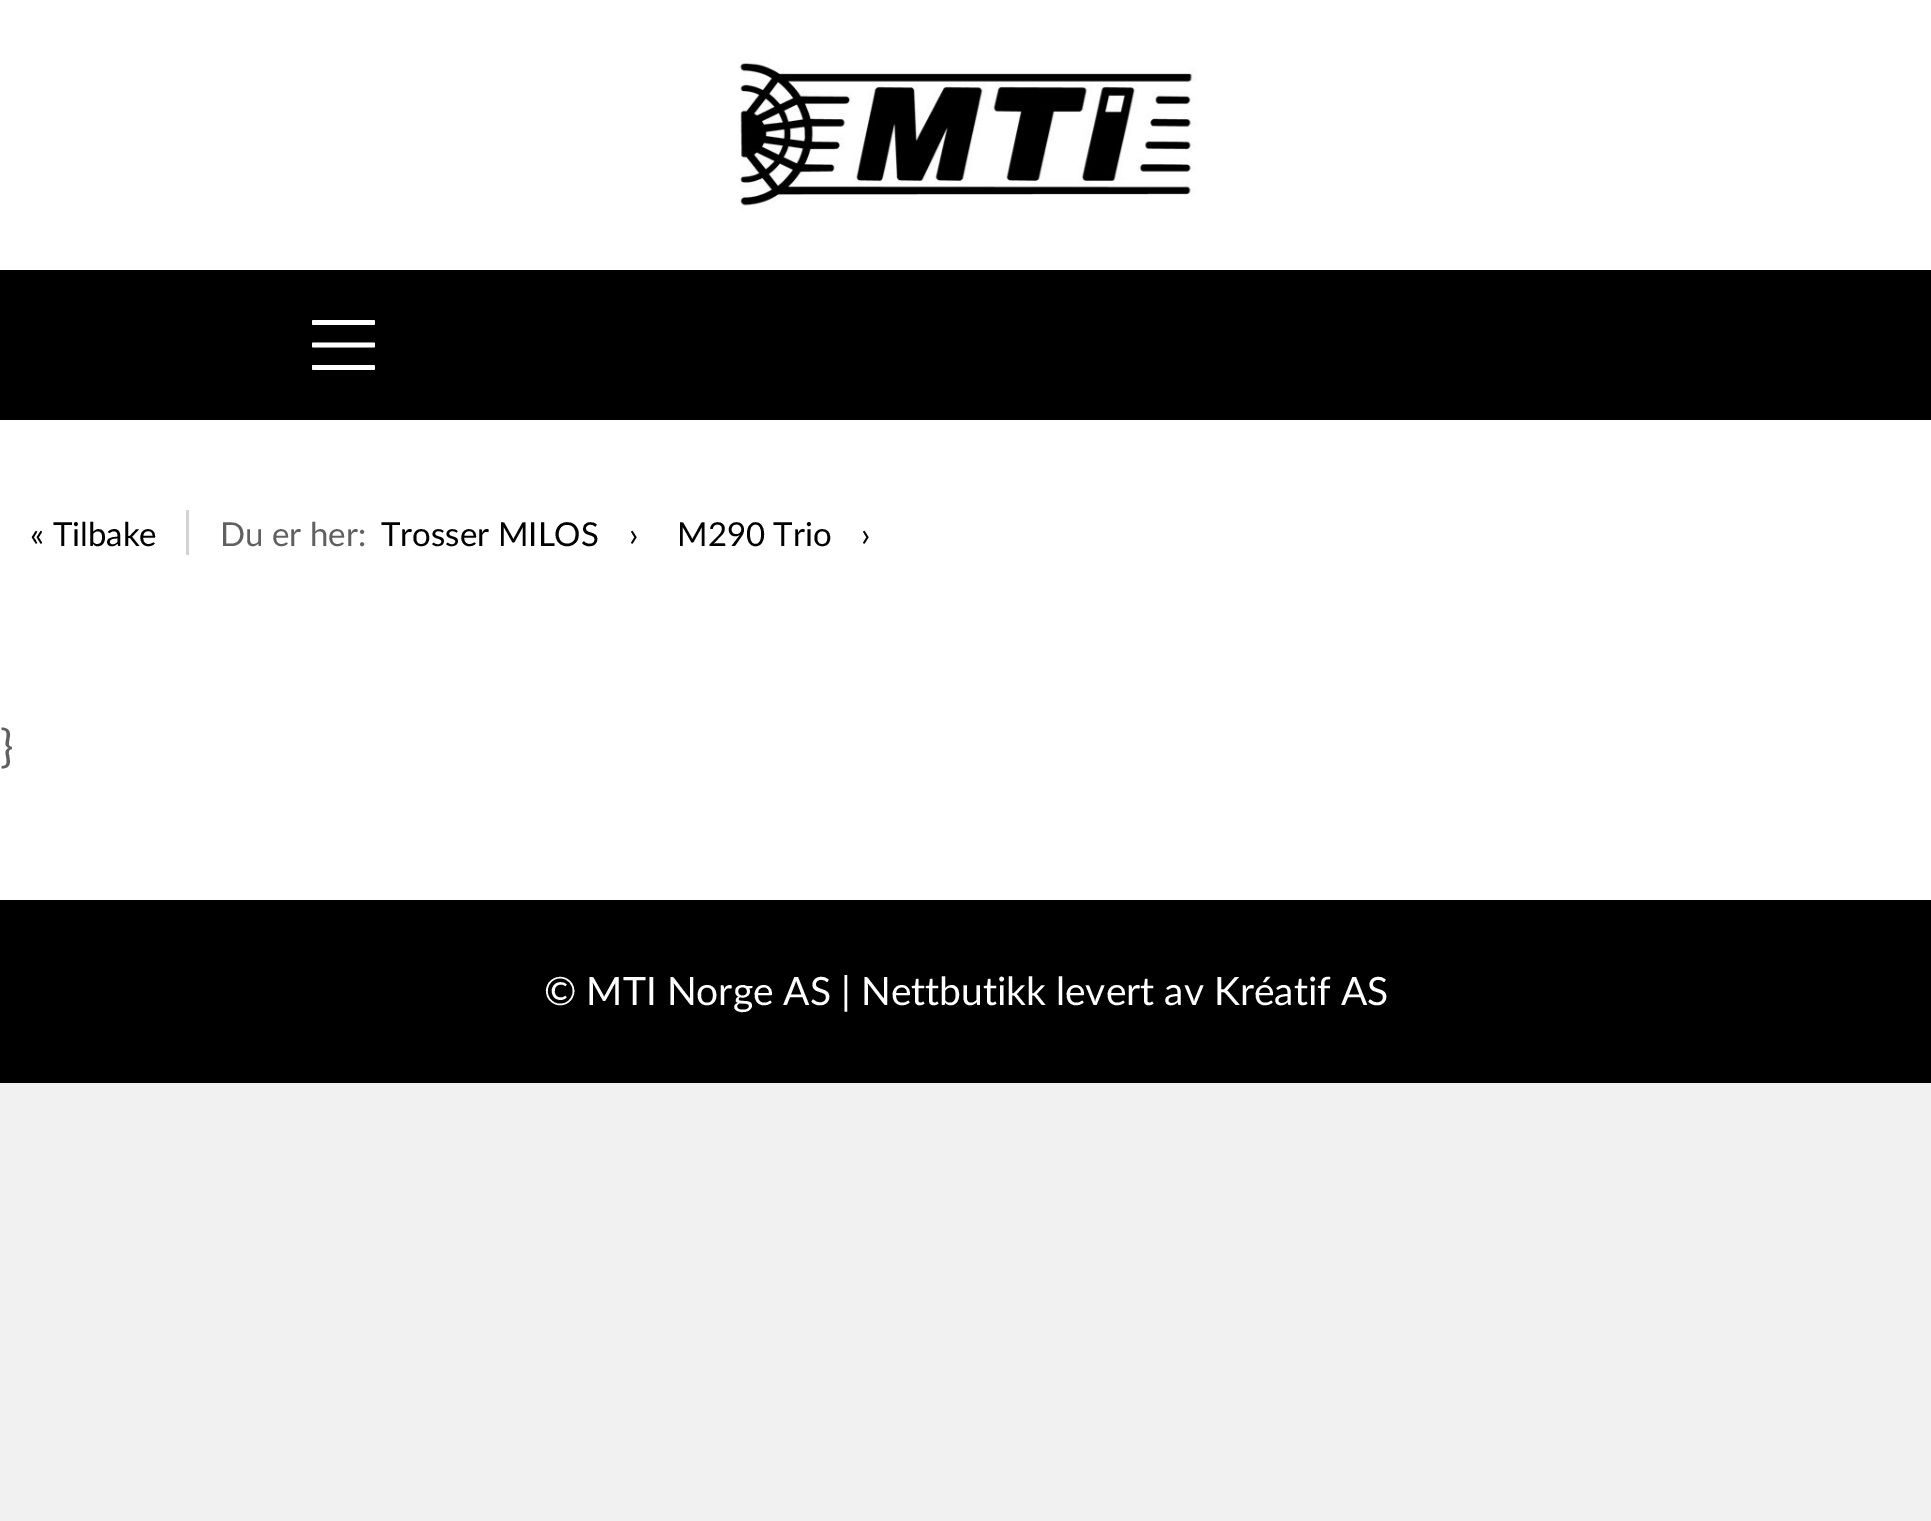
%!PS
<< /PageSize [1931 1521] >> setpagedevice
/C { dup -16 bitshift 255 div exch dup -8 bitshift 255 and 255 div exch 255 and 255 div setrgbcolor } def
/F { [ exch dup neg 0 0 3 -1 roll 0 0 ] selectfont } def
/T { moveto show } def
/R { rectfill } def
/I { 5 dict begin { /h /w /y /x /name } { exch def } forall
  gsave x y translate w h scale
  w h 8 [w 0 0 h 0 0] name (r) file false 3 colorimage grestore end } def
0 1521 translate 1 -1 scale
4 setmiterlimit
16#F1F1F1 C
0 0 1931 1521 R
16#FFFFFF C
0 0 1931 900 R
(1.rgb) 739 60 458 149 I
16#000000 C
0 270 1931 150 R
(2.rgb) 312 320 63 50 I
/Lato-Regular 33 F
(« Tilbake) 30 546 T
16#D3D3D3 C
186 510 3 45 R
16#606060 C
(Du er her:) 220 546 T
16#000000 C
(Trosser MILOS) 381 546 T
(›) 629 546 T
(M290 Trio) 677 546 T
(›) 861 546 T
/Lato-Regular 45 F
16#606060 C
(}) 0 762 T
16#000000 C
0 900 1931 183 R
/Lato-Regular 39 F
16#FFFFFF C
(© MTI Norge AS | Nettbutikk levert av Kréatif AS) 544 1005 T
showpage
